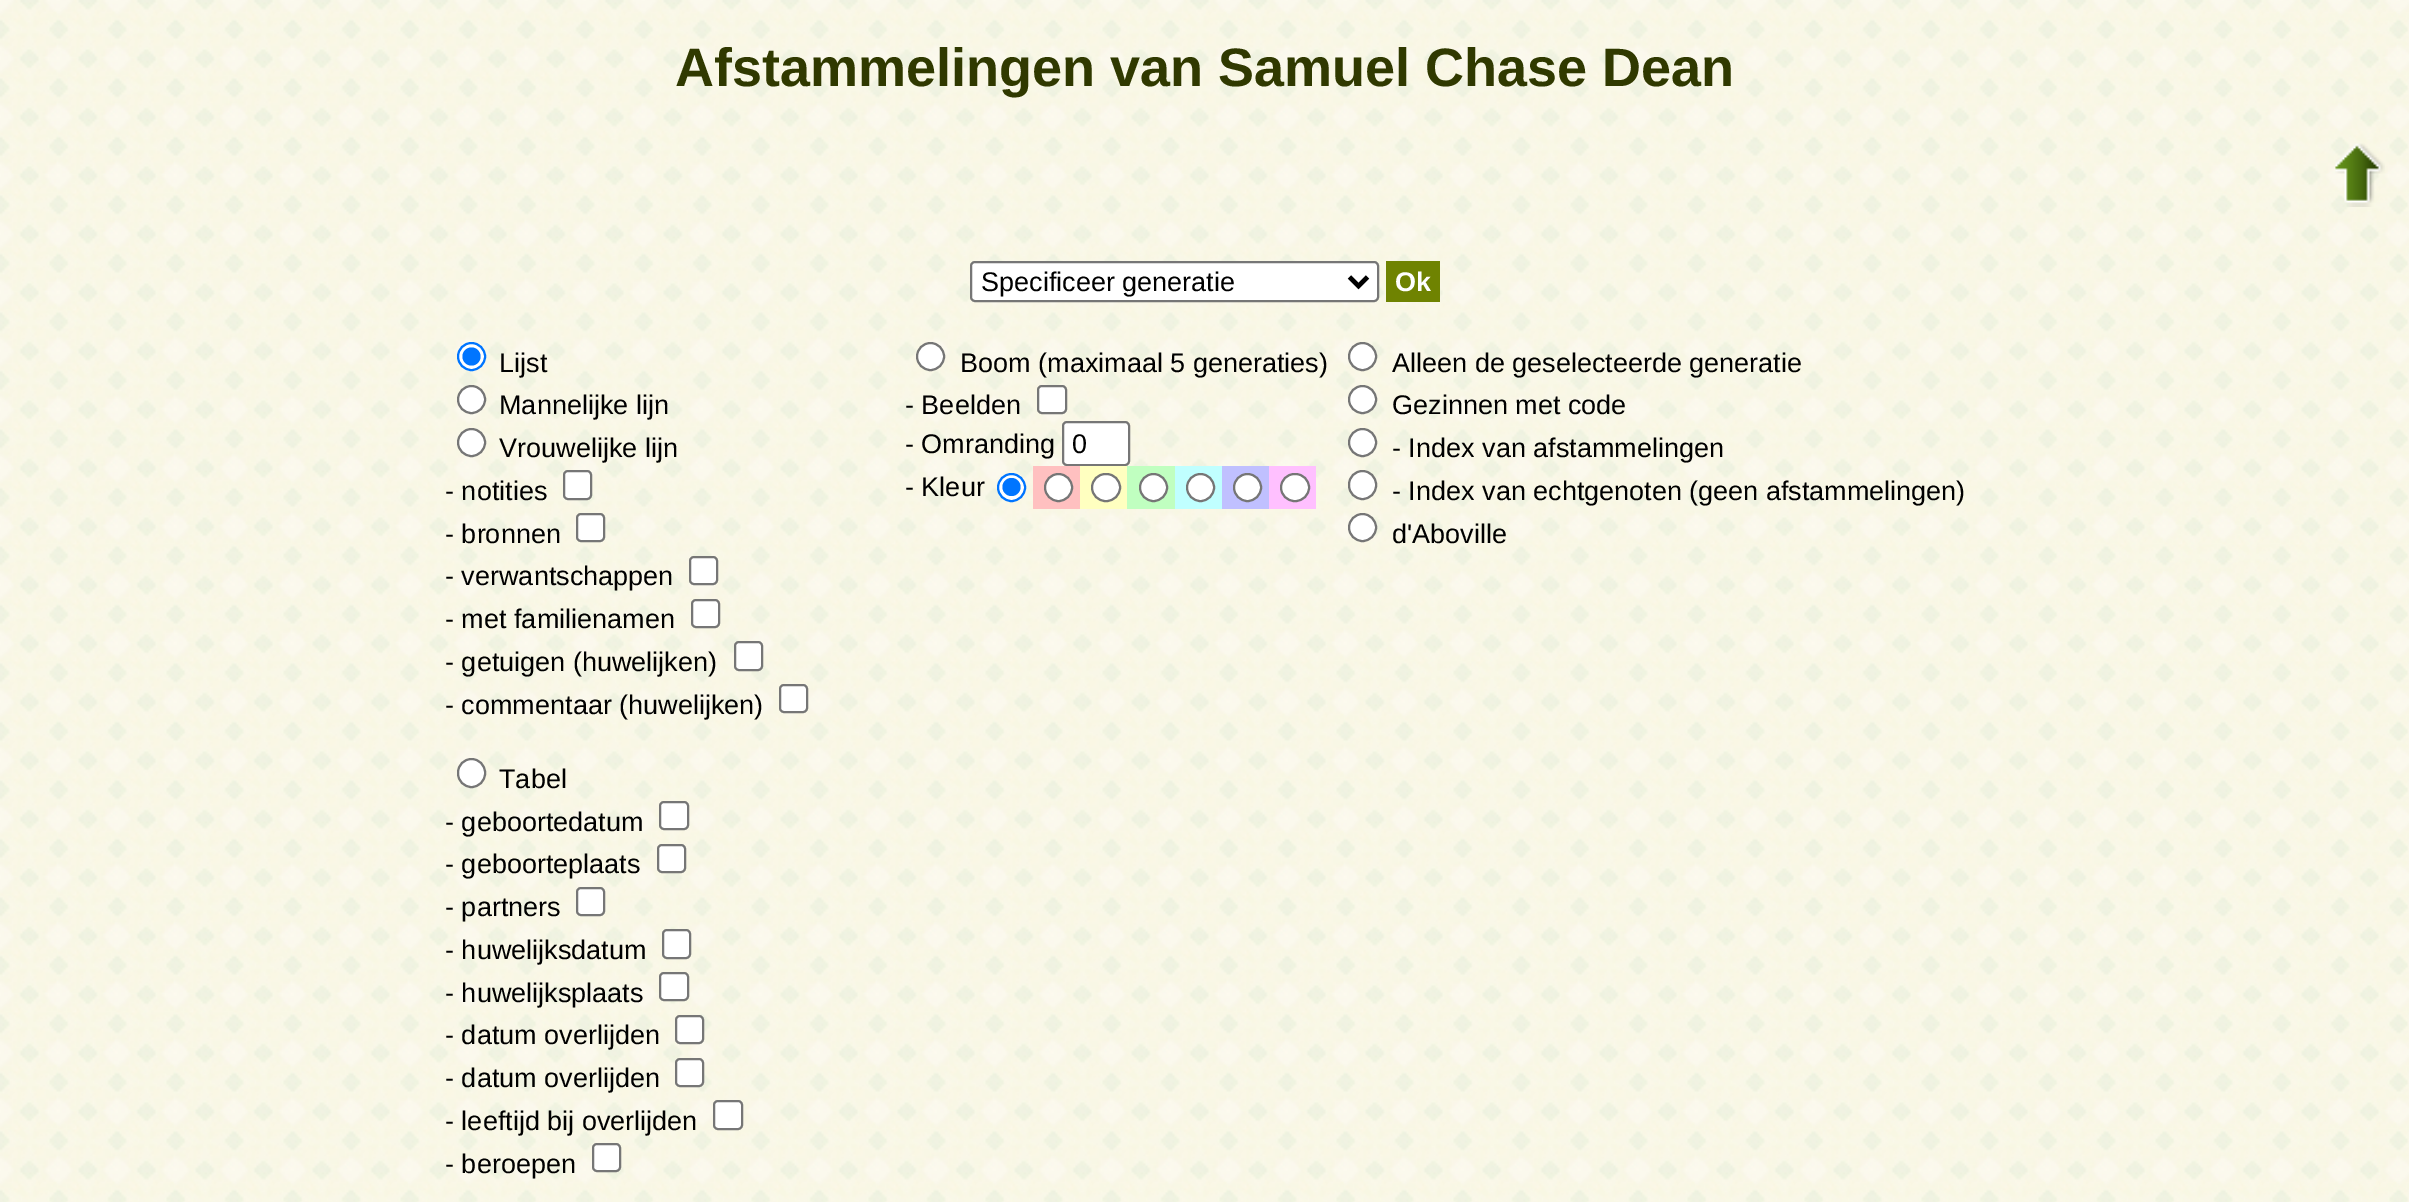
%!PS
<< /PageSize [2409 1202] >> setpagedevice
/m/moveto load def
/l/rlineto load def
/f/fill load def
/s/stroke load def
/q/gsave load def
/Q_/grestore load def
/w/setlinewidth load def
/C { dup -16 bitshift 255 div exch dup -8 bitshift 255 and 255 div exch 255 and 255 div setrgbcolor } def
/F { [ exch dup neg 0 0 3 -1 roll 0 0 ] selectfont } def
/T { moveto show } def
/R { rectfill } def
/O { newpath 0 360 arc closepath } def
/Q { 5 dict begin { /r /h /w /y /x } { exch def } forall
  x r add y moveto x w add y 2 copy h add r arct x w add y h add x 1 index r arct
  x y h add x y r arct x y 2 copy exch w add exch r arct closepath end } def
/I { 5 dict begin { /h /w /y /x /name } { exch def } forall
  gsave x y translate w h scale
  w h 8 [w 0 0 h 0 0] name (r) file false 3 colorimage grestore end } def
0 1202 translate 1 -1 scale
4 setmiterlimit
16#FFFFFF C
0 0 2409 1202 R
(1.rgb) 0 0 2409 1202 I
/LiberationSans-Bold 54 F
16#303900 C
(Afstammelingen van Samuel Chase Dean) 675 86 T
(2.rgb) 2335 143 50 64 I
16#FFFFFF C
971 262 407 39 4 Q q f Q_
16#767676 C
2 w
s
16#000000 C
4.5 w
1349.5 277 m 9 9 l 9 -9 l s
/LiberationSans-Regular 27 F
(Specificeer generatie) 981 291 T
16#6F8301 C
1386 261 54 41 R
/LiberationSans-Bold 27 F
16#FFFFFF C
(Ok) 1395 291 T
471.5 356.5 13.5 O q f Q_
16#0075FF C
2 w
s
471.5 356.5 9 O f
/LiberationSans-Regular 27 F
16#000000 C
(Lijst) 499 372 T
16#FFFFFF C
471.5 399.5 13.5 O q f Q_
16#767676 C
s
16#000000 C
(Mannelijke lijn) 499 414 T
16#FFFFFF C
471.5 442.5 13.5 O q f Q_
16#767676 C
s
16#000000 C
(Vrouwelijke lijn) 499 457 T
(- notities) 445 500 T
16#FFFFFF C
564 471 27 28 4 Q q f Q_
16#767676 C
s
16#000000 C
(- bronnen) 445 543 T
16#FFFFFF C
577 514 27 27 4 Q q f Q_
16#767676 C
s
16#000000 C
(- verwantschappen) 445 585 T
16#FFFFFF C
690 557 27 27 4 Q q f Q_
16#767676 C
s
16#000000 C
(- met familienamen) 445 628 T
16#FFFFFF C
692 600 27 27 4 Q q f Q_
16#767676 C
s
16#000000 C
(- getuigen \(huwelijken\)) 445 671 T
16#FFFFFF C
735 642 27 28 4 Q q f Q_
16#767676 C
s
16#000000 C
(- commentaar \(huwelijken\)) 445 714 T
16#FFFFFF C
780 685 27 27 4 Q q f Q_
16#767676 C
s
16#FFFFFF C
458 759 27 28 13.5 Q q f Q_
16#767676 C
s
16#000000 C
(Tabel) 499 788 T
(- geboortedatum) 445 831 T
16#FFFFFF C
660 802 28 27 4 Q q f Q_
16#767676 C
s
16#000000 C
(- geboorteplaats) 445 873 T
16#FFFFFF C
658 845 27 27 4 Q q f Q_
16#767676 C
s
16#000000 C
(- partners) 445 916 T
16#FFFFFF C
577 888 27 27 4 Q q f Q_
16#767676 C
s
16#000000 C
(- huwelijksdatum) 445 959 T
16#FFFFFF C
663 930 27 28 4 Q q f Q_
16#767676 C
s
16#000000 C
(- huwelijksplaats) 445 1002 T
16#FFFFFF C
660 973 28 27 4 Q q f Q_
16#767676 C
s
16#000000 C
(- datum overlijden) 445 1044 T
16#FFFFFF C
676 1016 27 27 4 Q q f Q_
16#767676 C
s
16#000000 C
(- datum overlijden) 445 1087 T
16#FFFFFF C
676 1059 27 27 4 Q q f Q_
16#767676 C
s
16#000000 C
(- leeftijd bij overlijden) 445 1130 T
16#FFFFFF C
714 1101 28 28 4 Q q f Q_
16#767676 C
s
16#000000 C
(- beroepen) 445 1173 T
16#FFFFFF C
593 1144 27 27 4 Q q f Q_
16#767676 C
s
16#FFFFFF C
930.5 356.5 13.5 O q f Q_
16#767676 C
s
16#000000 C
(Boom \(maximaal 5 generaties\)) 960 372 T
(- Beelden) 905 414 T
16#FFFFFF C
1038 386 28 27 4 Q q f Q_
16#767676 C
s
16#000000 C
(- Omranding) 905 453 T
16#FFFFFF C
1063 422 66 43 4 Q q f Q_
16#767676 C
s
16#000000 C
(0) 1072 453 T
(- Kleur) 905 496 T
16#FFFFFF C
1011.5 487.5 13.5 O q f Q_
16#0075FF C
s
1011.5 487 9 O f
16#FFC0C0 C
1033 466 47 43 R
16#FFFFFF C
1058.5 487.5 13.5 O q f Q_
16#767676 C
s
16#FFFFC0 C
1080 466 47 43 R
16#FFFFFF C
1092 474 28 27 13.5 Q q f Q_
16#767676 C
s
16#C0FFC0 C
1127 466 48 43 R
16#FFFFFF C
1153.5 487.5 13.5 O q f Q_
16#767676 C
s
16#C0FFFF C
1175 466 47 43 R
16#FFFFFF C
1200.5 487.5 13.5 O q f Q_
16#767676 C
s
16#C0C0FF C
1222 466 47 43 R
16#FFFFFF C
1247.5 487.5 13.5 O q f Q_
16#767676 C
s
16#FFC0FF C
1269 466 47 43 R
16#FFFFFF C
1281 474 28 27 13.5 Q q f Q_
16#767676 C
s
16#FFFFFF C
1362.5 356.5 13.5 O q f Q_
16#767676 C
s
16#000000 C
(Alleen de geselecteerde generatie) 1392 372 T
16#FFFFFF C
1362.5 399.5 13.5 O q f Q_
16#767676 C
s
16#000000 C
(Gezinnen met code) 1392 414 T
16#FFFFFF C
1362.5 442.5 13.5 O q f Q_
16#767676 C
s
16#000000 C
(- Index van afstammelingen) 1392 457 T
16#FFFFFF C
1349 471 27 28 13.5 Q q f Q_
16#767676 C
s
16#000000 C
(- Index van echtgenoten \(geen afstammelingen\)) 1392 500 T
16#FFFFFF C
1362.5 527.5 13.5 O q f Q_
16#767676 C
s
16#000000 C
(d'Aboville) 1392 543 T
showpage
